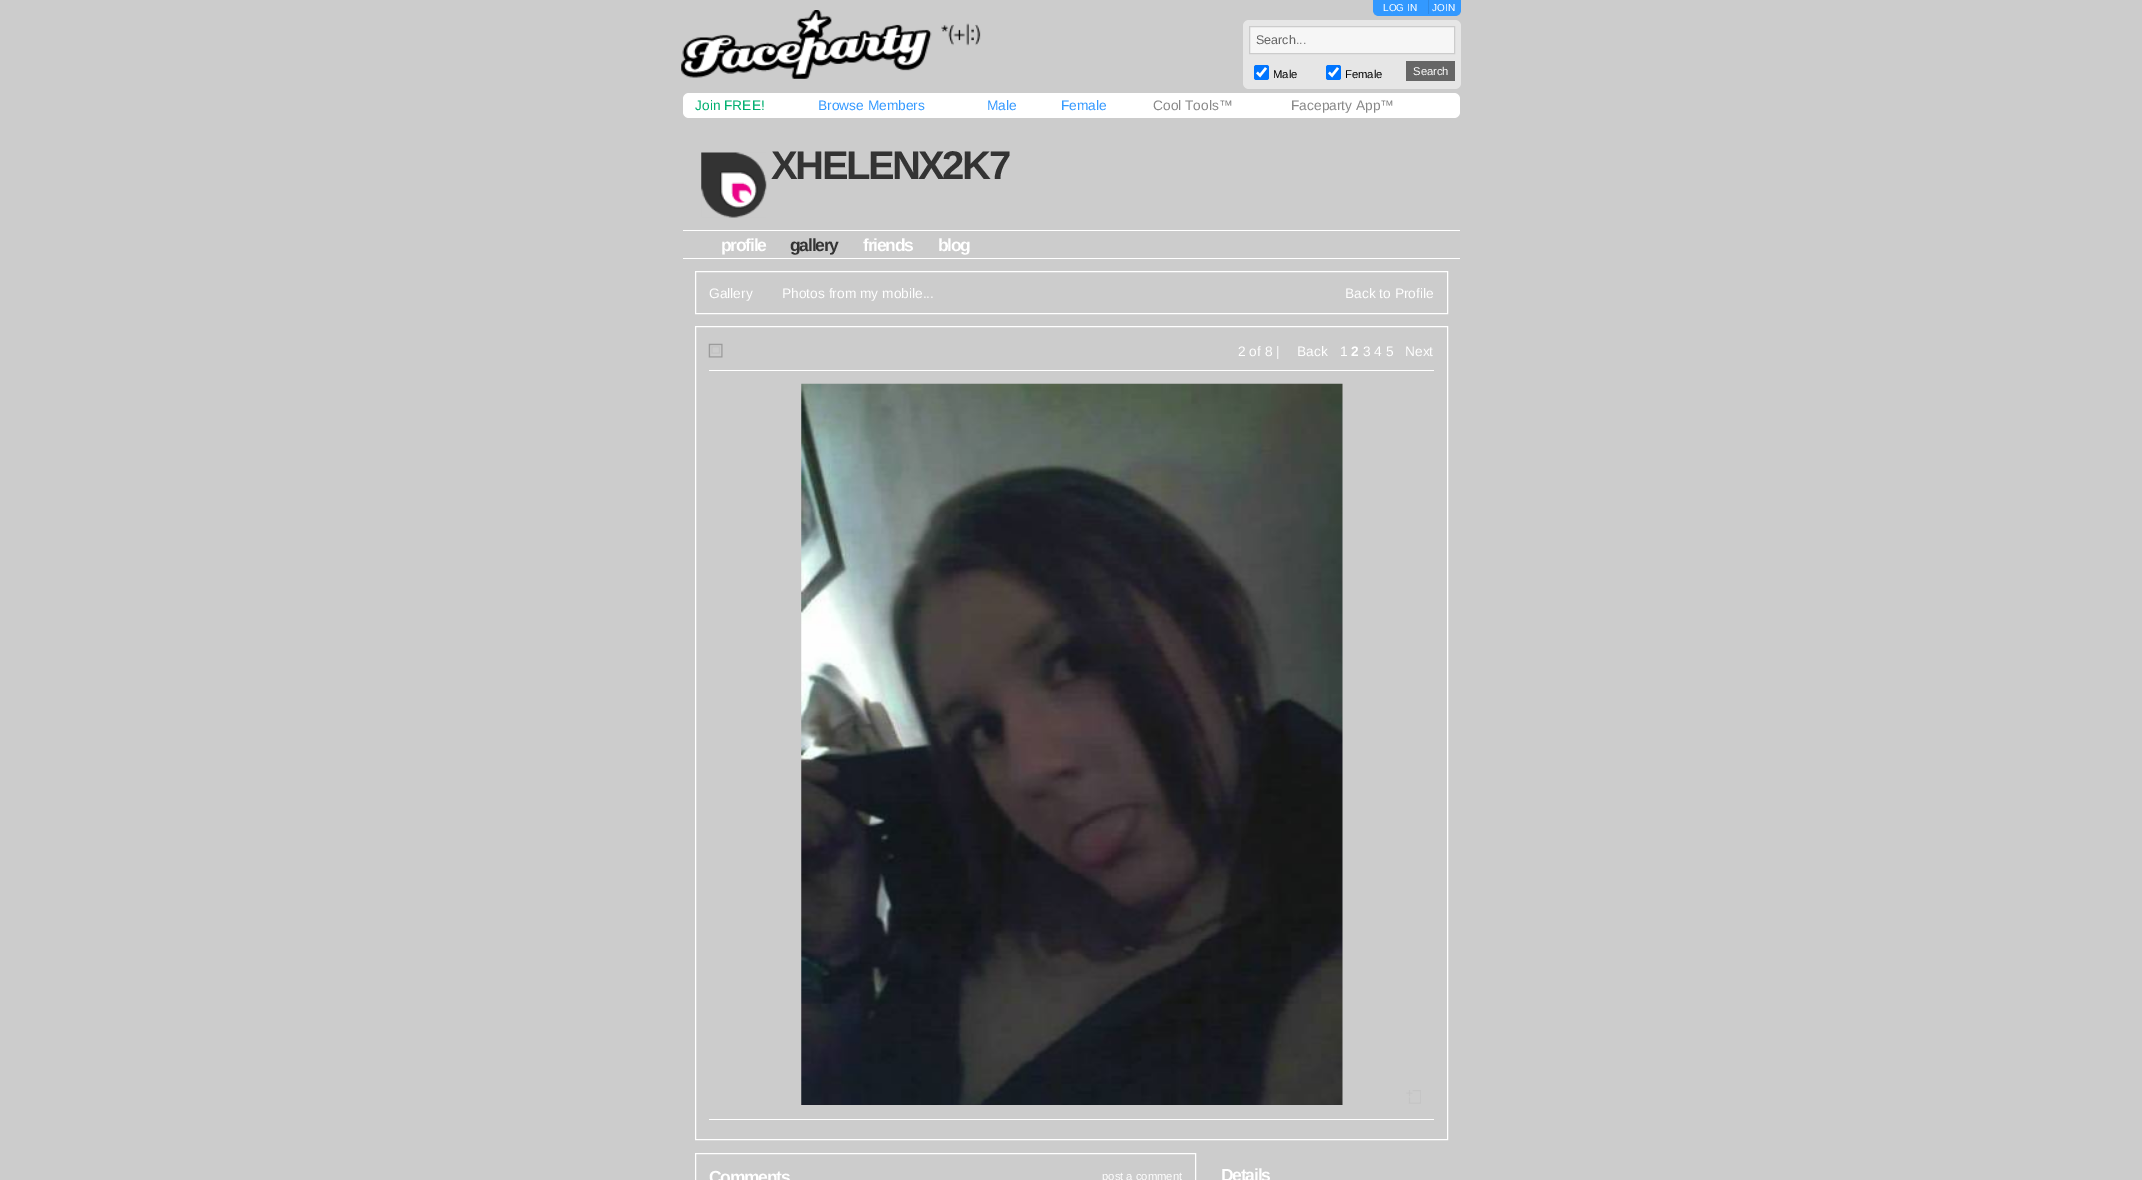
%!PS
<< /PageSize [2142 1180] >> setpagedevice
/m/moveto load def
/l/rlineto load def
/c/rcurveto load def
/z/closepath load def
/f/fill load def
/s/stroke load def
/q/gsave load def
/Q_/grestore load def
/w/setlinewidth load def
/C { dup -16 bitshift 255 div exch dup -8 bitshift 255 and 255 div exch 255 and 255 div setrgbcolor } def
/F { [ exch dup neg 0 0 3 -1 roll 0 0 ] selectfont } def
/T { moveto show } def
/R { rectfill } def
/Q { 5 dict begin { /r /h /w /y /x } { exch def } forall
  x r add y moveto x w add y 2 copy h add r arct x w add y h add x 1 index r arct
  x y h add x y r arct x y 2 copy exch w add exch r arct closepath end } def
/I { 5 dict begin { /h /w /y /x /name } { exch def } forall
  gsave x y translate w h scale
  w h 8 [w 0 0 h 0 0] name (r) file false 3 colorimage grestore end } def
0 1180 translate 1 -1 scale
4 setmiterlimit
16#CCCCCC C
0 0 2142 1180 R
(1.rgb) 681 10 300 69 I
16#3399FF C
1373 0 m 88 0 l 0 10 l 0 3.5 -2.5 6 -6 6 c -76 0 l -3.5 0 -6 -2.5 -6 -6 c z f
16#2E89E5 C
1428 0 1 14 R
/LiberationSans-Regular 10 F
16#FFFFFF C
(LOG IN) 1383 11 T
(JOIN) 1432 11 T
16#E6E6E6 C
1243 20 218 69 6 Q f
16#F6F6F6 C
1249.5 26.5 m 205 0 l 0 27 l -205 0 l z q f Q_
16#CCCCCC C
s
/LiberationSans-Regular 12.5 F
16#666666 C
(Search...) 1256 44 T
16#0075FF C
1254 65 15 15 2.5 Q f
16#FFFFFF C
2.4 w
1257 72.5 m 3 3 l 6 -7.5 l s
/LiberationSans-Regular 11.25 F
16#000000 C
(Male) 1273 78 T
16#0075FF C
1326 65 15 15 2.5 Q f
16#FFFFFF C
1329 72.5 m 3 3 l 6 -7.5 l s
16#000000 C
(Female) 1345 78 T
16#666666 C
1406 61 49 20 R
16#FFFFFF C
(Search) 1413 75 T
683 93 777 25 6 Q f
/LiberationSans-Regular 13.75 F
16#00B070 C
(Join FREE!) 695 110 T
16#3399FF C
(Browse Members) 818 110 T
(Male) 987 110 T
(Female) 1061 110 T
16#888888 C
(Cool Tools™) 1153 110 T
(Faceparty App™) 1291 110 T
(2.rgb) 701 152 66 66 I
/LiberationSans-Bold 40 F
16#333333 C
771 179 m -2.5 0 (XHELENX2K7) ashow
16#FFFFFF C
683 230 777 1 R
683 258 777 1 R
/LiberationSans-Bold 17.5 F
721 251 m -1.25 0 (profile) ashow
16#333333 C
790 251 m -1.25 0 (gallery) ashow
16#FFFFFF C
863 251 m -1.25 0 (friends) ashow
938 251 m -1.25 0 (blog) ashow
1 w
695.5 271.5 752 42 rectstroke
/LiberationSans-Regular 13.75 F
(Gallery) 709 298 T
(Photos from my mobile...) 782 298 T
(Back to Profile) 1345 298 T
695.5 326.5 752 813 rectstroke
(3.rgb) 708 343 15 15 I
(2 of 8 |) 1238 356 T
(Back) 1297 356 T
(1) 1340 356 T
/LiberationSans-Bold 13.75 F
(2) 1351 356 T
/LiberationSans-Regular 13.75 F
(3 4 5) 1363 356 T
(Next) 1405 356 T
709 370 725 1 R
(4.rgb) 801 383 542 722 I
(5.rgb) 1406 1090 15 14 I
709 1119 725 1 R
695.5 1153.5 500 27 rectstroke
/LiberationSans-Bold 17.5 F
709 1183 m -1.25 0 (Comments) ashow
/LiberationSans-Regular 11.25 F
(post a comment) 1102 1180 T
/LiberationSans-Bold 17.5 F
1221 1181 m -1.25 0 (Details) ashow
showpage
